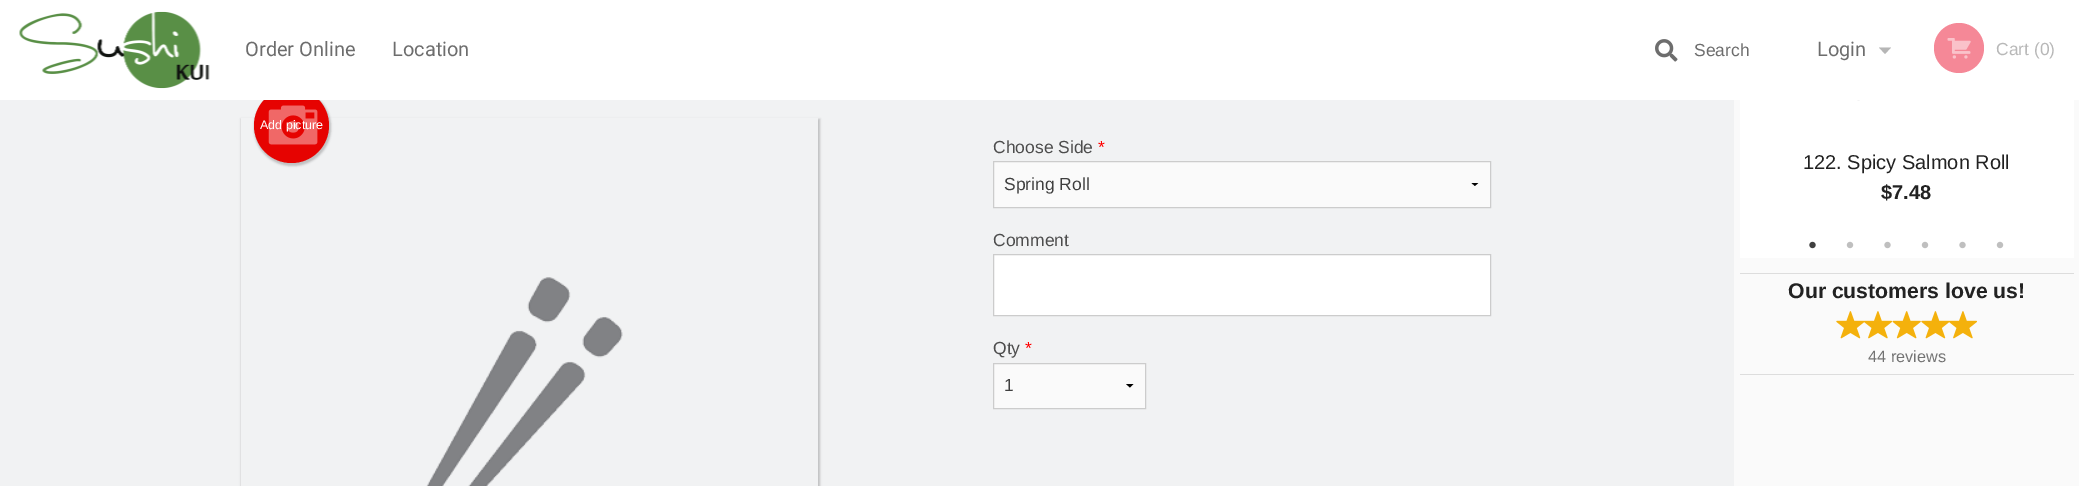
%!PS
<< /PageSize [2079 486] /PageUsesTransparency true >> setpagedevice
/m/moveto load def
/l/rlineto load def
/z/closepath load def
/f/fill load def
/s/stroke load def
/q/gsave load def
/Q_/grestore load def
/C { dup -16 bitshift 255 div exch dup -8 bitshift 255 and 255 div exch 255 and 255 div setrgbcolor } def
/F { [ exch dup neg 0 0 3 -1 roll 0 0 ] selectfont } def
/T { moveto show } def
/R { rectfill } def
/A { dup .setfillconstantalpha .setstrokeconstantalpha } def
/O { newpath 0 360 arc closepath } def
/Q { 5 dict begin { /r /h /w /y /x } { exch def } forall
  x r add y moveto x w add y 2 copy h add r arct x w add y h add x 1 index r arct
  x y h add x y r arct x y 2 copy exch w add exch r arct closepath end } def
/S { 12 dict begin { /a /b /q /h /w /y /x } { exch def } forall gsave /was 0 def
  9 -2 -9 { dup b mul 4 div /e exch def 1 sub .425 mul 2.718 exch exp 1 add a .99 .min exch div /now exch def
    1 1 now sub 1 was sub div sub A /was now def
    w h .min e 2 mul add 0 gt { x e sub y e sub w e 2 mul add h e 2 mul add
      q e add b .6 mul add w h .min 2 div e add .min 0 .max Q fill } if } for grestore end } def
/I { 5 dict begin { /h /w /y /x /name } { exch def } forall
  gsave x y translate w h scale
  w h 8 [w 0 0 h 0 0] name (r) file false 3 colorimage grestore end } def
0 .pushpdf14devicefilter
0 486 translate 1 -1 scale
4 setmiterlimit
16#F1F2F3 C
0 0 2079 486 R
16#000000 C
254 89 77 77 38.5 1 .2 S
q
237 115 m 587 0 l 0 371 l -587 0 l z 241 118 m 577 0 l 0 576 l -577 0 l z eoclip newpath
241 119 579 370 0 1 .2 S
Q_
16#E60301 C
291.5 125.5 37.5 O f
16#FFFFFF C
0 0 2079 100 R
(1.rgb) 19 11 191 78 I
/Roboto-Regular 20 F
16#6D6D6D C
(Order Online) 245 56 T
(Location) 392 56 T
(2.rgb) 1655 39 23 23 I
/LiberationSans-Regular 17.5 F
(Search) 1694 56 T
/Roboto-Regular 20 F
(Login) 1817 56 T
16#B6B6B6 C
1879 47.5 m 12 0 l -6 6.5 l z f
16#F58897 C
1959 48 25 O f
(3.rgb) 1947 38 24 21 I
/LiberationSans-Regular 17.5 F
16#B8B8B8 C
(Cart \(0\)) 1996 55 T
(4.rgb) 426 277 197 209 I
(5.rgb) 268 105 50 40 I
/LiberationSans-Regular 12.5 F
16#FFFFFF C
(Add picture) 260 129 T
/LiberationSans-Regular 17.5 F
16#4D4D4D C
(Choose Side) 993 153 T
16#FF0000 C
(*) 1098 153 T
16#FAFAFA C
994 162 496 45 R
q
1460 183 30 4 rectclip
16#000000 C
1478.5 182.5 m -3.5 3.5 l -4 -3.5 l z f
Q_
16#CCCCCC C
993.5 161.5 497 46 rectstroke
16#3F3F3F C
(Spring Roll) 1004 190 T
16#4D4D4D C
(Comment) 993 246 T
16#FFFFFF C
993.5 254.5 m 497 0 l 0 61 l -497 0 l z q f Q_
16#CCCCCC C
s
16#4D4D4D C
(Qty) 993 354 T
16#FF0000 C
(*) 1025 354 T
16#FAFAFA C
994 364 151 44 R
16#000000 C
1133.5 384 m -3.5 3.5 l -4 -3.5 l z f
16#CCCCCC C
993.5 363.5 152 45 rectstroke
16#3F3F3F C
(1) 1004 391 T
16#FAFAFA C
1734 100 345 386 R
16#FFFFFF C
1740 100 334 158 R
(6.rgb) 1857 100 3 1 I
/LiberationSans-Regular 20 F
16#222222 C
(122. Spicy Salmon Roll) 1803 169 T
/LiberationSans-Bold 20 F
($7.48) 1881 199 T
(7.rgb) 1809 241 7 8 I
(8.rgb) 1846 241 8 8 I
(9.rgb) 1884 241 7 8 I
(8.rgb) 1921 241 8 8 I
(9.rgb) 1959 241 7 8 I
(8.rgb) 1996 241 8 8 I
16#DDDDDD C
1740 273 334 1 R
/LiberationSans-Bold 21.25 F
16#222222 C
(Our customers love us!) 1788 298 T
(10.rgb) 1836 311 29 28 I
(11.rgb) 1864 311 28 28 I
(12.rgb) 1892 311 29 28 I
(10.rgb) 1921 311 29 28 I
(11.rgb) 1949 311 28 28 I
/LiberationSans-Regular 16.25 F
16#737373 C
(44 reviews) 1868 362 T
16#DDDDDD C
1740 374 334 1 R
.poppdf14devicefilter showpage
